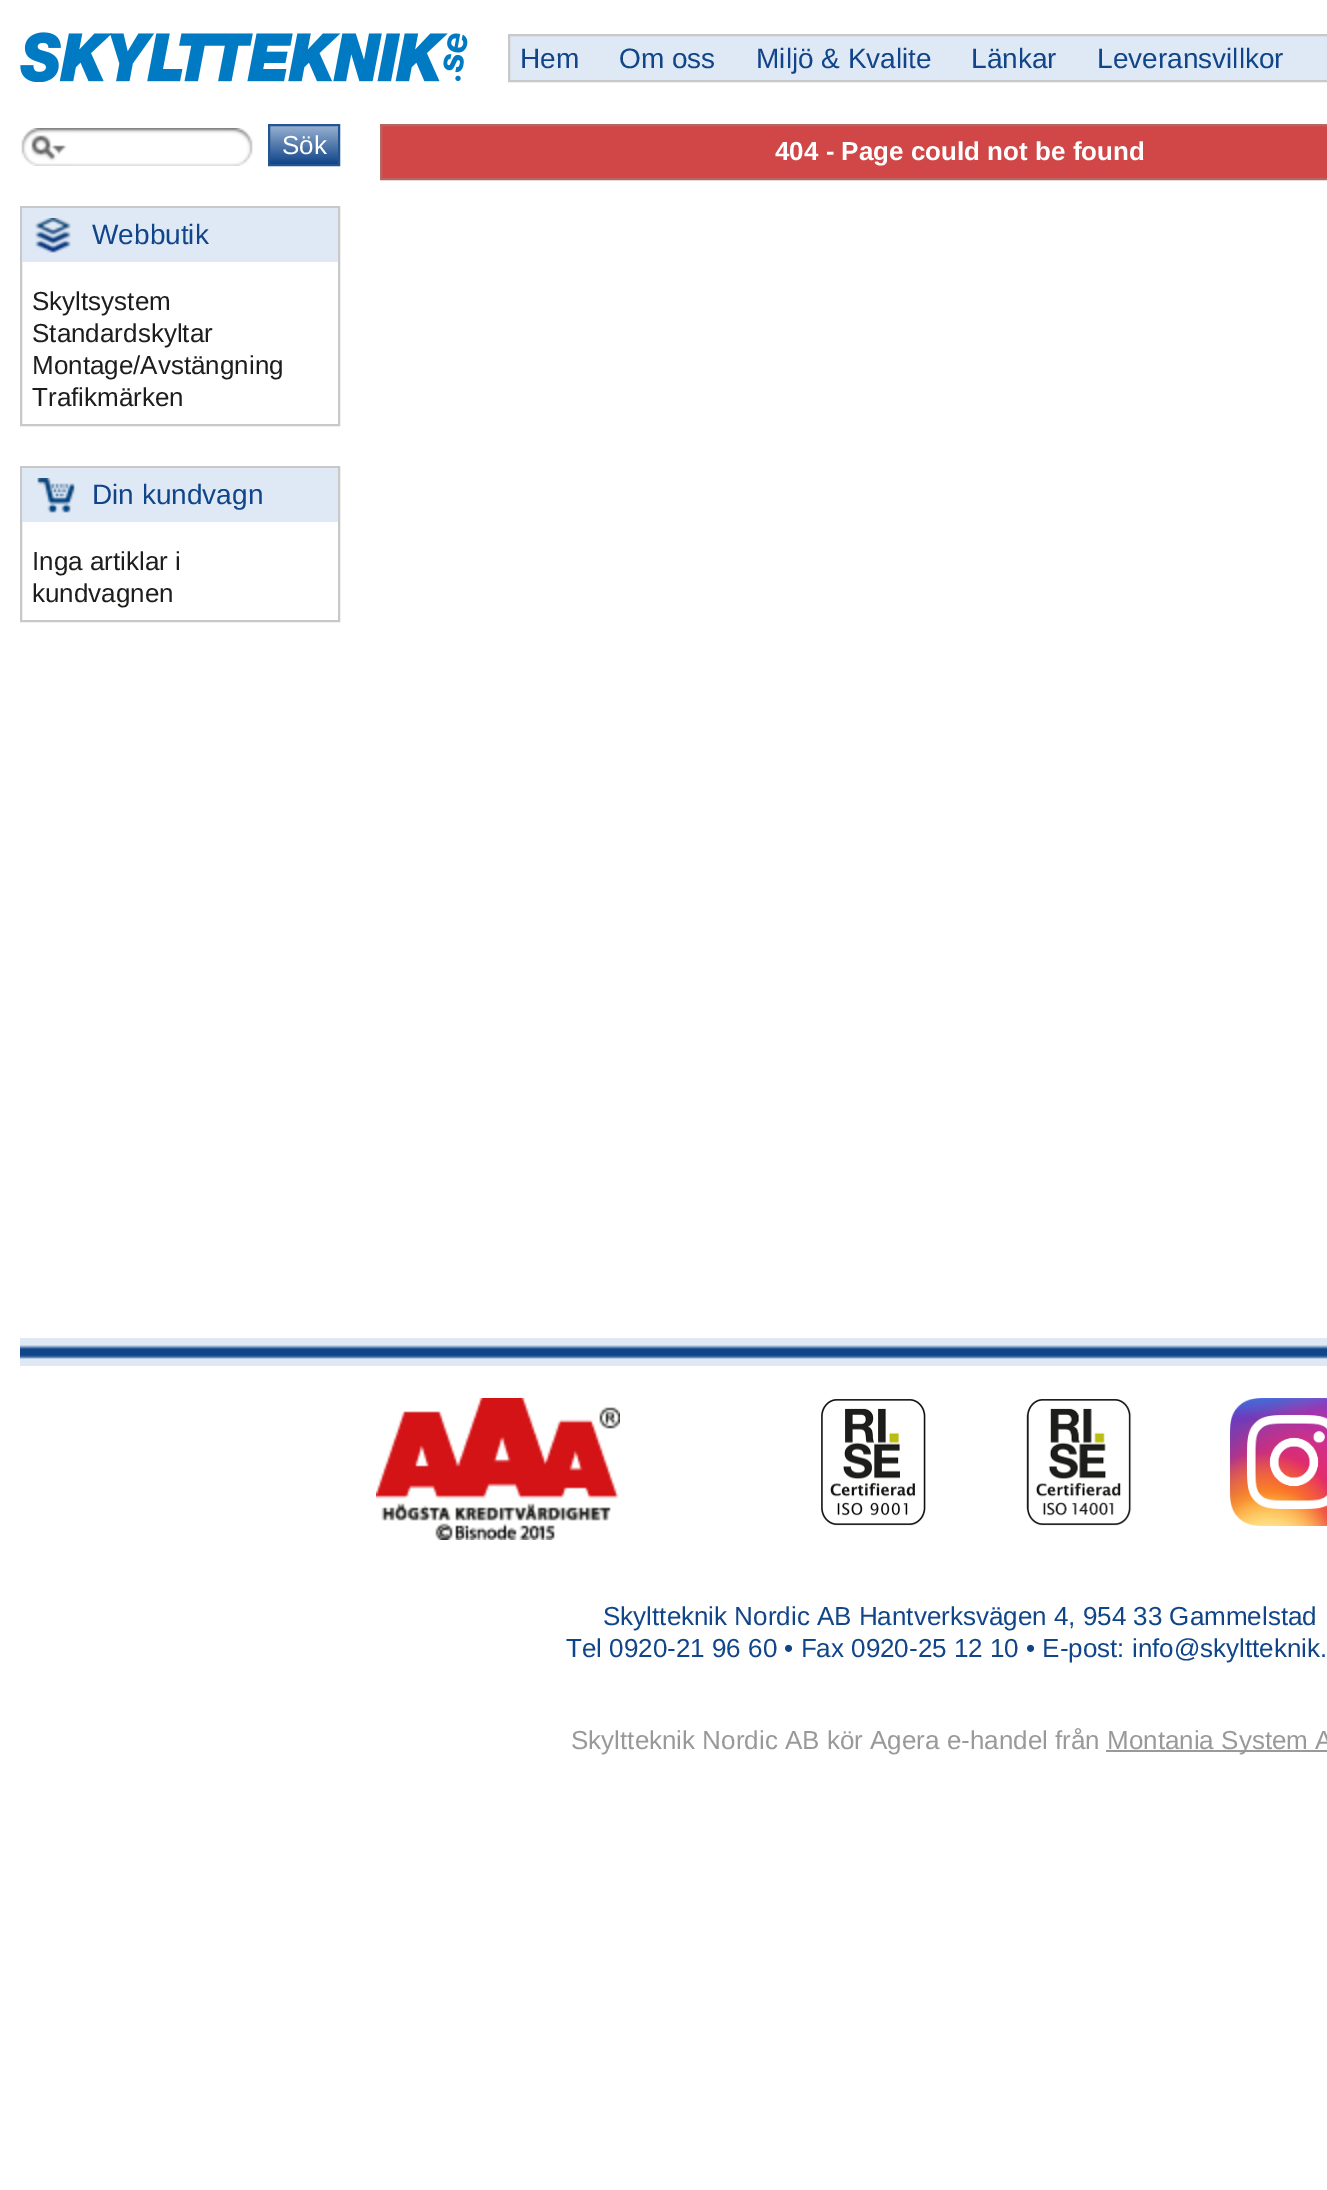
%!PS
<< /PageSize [1327 2190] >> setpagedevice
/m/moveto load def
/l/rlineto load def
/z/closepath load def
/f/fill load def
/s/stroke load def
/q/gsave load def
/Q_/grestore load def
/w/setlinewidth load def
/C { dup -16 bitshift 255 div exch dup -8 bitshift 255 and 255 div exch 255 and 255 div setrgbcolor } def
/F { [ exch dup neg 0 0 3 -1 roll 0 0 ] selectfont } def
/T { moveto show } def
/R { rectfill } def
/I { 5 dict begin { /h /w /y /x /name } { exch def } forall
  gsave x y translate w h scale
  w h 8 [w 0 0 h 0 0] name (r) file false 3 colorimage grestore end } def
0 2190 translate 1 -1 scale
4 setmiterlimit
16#FFFFFF C
0 0 1327 2190 R
(1.rgb) 20 32 448 50 I
16#DFE8F5 C
509 35 m 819 0 l 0 46 l -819 0 l z q f Q_
16#C9C8C8 C
2 w
s
/LiberationSans-Regular 28 F
16#104589 C
(Hem) 520 68 T
(Om oss) 619 68 T
(Miljö & Kvalite) 756 68 T
(Länkar) 971 68 T
(Leveransvillkor) 1097 68 T
(2.rgb) 21 128 232 38 I
q 270 126 m 68 0 l 0 38 l -68 0 l z clip newpath
<< /ShadingType 2 /ColorSpace /DeviceRGB /Coords [304 126 304 164] /Extend [true true] /Function << /FunctionType 2 /Domain [0 1] /C0 [.592 .69 .82] /C1 [.063 .271 .537] /N 1 >> >> shfill Q_
16#245593 C
269 125 70 40 rectstroke
/LiberationSans-Regular 26 F
16#FFFFFF C
(Sök) 282 154 T
16#C9C8C8 C
21 207 318 218 rectstroke
16#DFE8F5 C
22 208 316 54 R
(3.rgb) 35 218 36 35 I
/LiberationSans-Regular 28 F
16#104589 C
(Webbutik) 92 244 T
/LiberationSans-Regular 26 F
16#1D1D1B C
(Skyltsystem) 32 310 T
(Standardskyltar) 32 342 T
(Montage/Avstängning) 32 374 T
(Trafikmärken) 32 406 T
16#C9C8C8 C
21 467 318 154 rectstroke
16#DFE8F5 C
22 468 316 54 R
(4.rgb) 37 478 38 35 I
/LiberationSans-Regular 28 F
16#104589 C
(Din kundvagn) 92 504 T
/LiberationSans-Regular 26 F
16#1D1D1B C
(Inga artiklar i) 32 570 T
(kundvagnen) 32 602 T
16#D14646 C
381 125 m 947 0 l 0 54 l -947 0 l z q f Q_
16#B76666 C
s
/LiberationSans-Bold 26 F
16#FFFFFF C
(404 - Page could not be found) 775 160 T
(5.rgb) 20 1338 1307 28 I
(6.rgb) 376 1398 244 142 I
(7.rgb) 821 1399 105 127 I
(8.rgb) 1026 1399 106 127 I
(9.rgb) 1230 1398 97 128 I
/LiberationSans-Regular 26 F
16#104589 C
(Skyltteknik Nordic AB Hantverksvägen 4, 954 33 Gammelstad) 603 1625 T
(Tel 0920-21 96 60 • Fax 0920-25 12 10 • E-post: info@skyltteknik.) 566 1657 T
16#999999 C
(Skyltteknik Nordic AB kör Agera e-handel från) 571 1749 T
1106 1750 221 2 R
(Montania System A) 1107 1749 T
showpage
